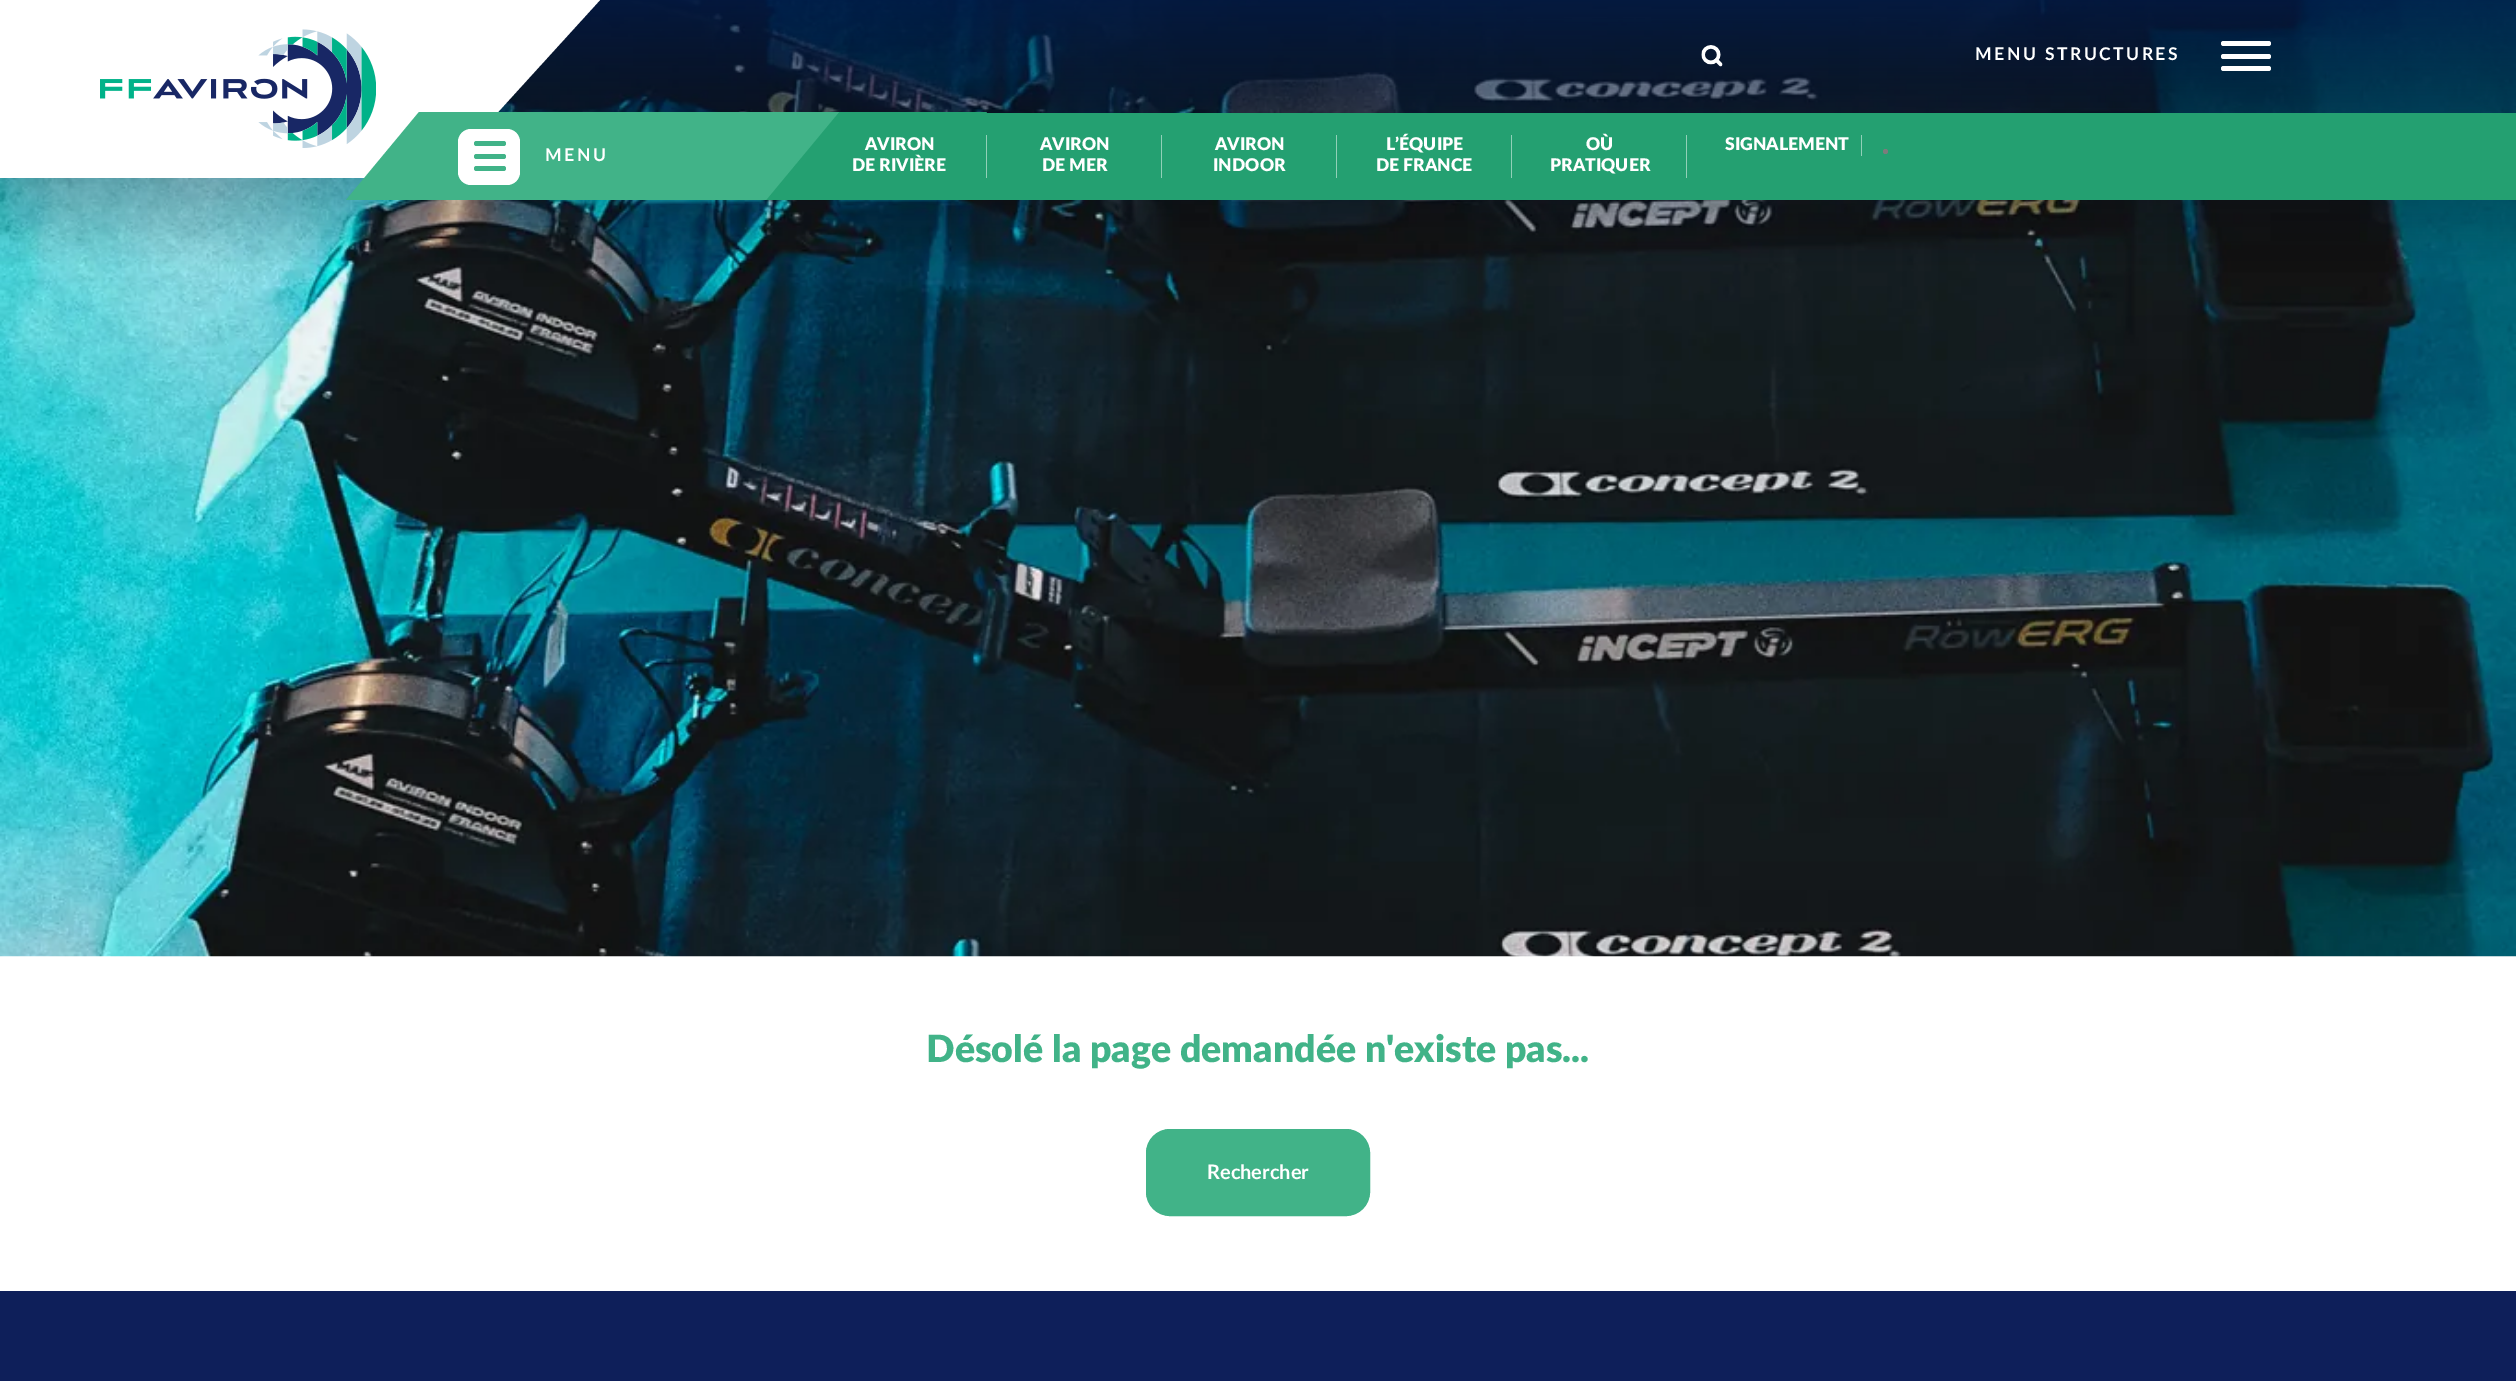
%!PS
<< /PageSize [2516 1381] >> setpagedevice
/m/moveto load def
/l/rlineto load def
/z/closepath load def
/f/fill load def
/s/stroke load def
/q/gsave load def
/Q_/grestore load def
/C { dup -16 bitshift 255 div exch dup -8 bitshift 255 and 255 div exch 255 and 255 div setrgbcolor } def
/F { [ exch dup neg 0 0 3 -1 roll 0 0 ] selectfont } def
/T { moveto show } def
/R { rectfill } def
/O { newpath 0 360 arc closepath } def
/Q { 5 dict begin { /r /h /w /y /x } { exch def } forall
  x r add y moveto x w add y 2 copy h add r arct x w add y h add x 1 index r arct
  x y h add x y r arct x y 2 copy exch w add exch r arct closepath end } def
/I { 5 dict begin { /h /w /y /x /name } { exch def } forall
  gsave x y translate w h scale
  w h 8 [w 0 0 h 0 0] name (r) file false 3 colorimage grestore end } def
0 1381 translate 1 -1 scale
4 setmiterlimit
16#FFFFFF C
0 0 2516 1381 R
(3.rgb) 0 0 2516 957 I
0 0 m 0 178 l 438 0 l 162 -178 l z f
(1.rgb) 100 29 276 119 I
(2.rgb) 1701 45 22 22 I
/Lato-Bold 17.5 F
1975 60 m 2.5 0 (MENU STRUCTURES) ashow
2221 66 50 5 2.5 Q f
2221 41 50 5 2.5 Q f
2221 54 50 5 2.5 Q f
16#24A071 C
913 113 1603 87 R
787 112 m 200 0 l -74 88 l -200 0 l z f
16#41B388 C
419 112 m 420 0 l -73 88 l -420 0 l z f
16#FFFFFF C
458 129 62 56 13 Q f
16#41B388 C
474 166 32 5 2.5 Q f
474 141 32 5 2.5 Q f
474 154 32 5 2.5 Q f
16#FFFFFF C
545 161 m 2.5 0 (MENU) ashow
16#92D0B8 C
986 135 1 43 R
/Lato-Black 17.5 F
16#FFFFFF C
(AVIRON) 865 150 T
(DE RIVIÈRE) 852 171 T
16#92D0B8 C
1161 135 1 43 R
16#FFFFFF C
(AVIRON) 1040 150 T
(DE MER) 1042 171 T
16#92D0B8 C
1336 135 1 43 R
16#FFFFFF C
(AVIRON) 1215 150 T
(INDOOR) 1213 171 T
16#92D0B8 C
1511 135 1 43 R
16#FFFFFF C
(L’ÉQUIPE) 1386 150 T
(DE FRANCE) 1376 171 T
16#92D0B8 C
1686 135 1 43 R
16#FFFFFF C
(OÙ) 1586 150 T
(PRATIQUER) 1550 171 T
16#92D0B8 C
1861 135 1 21 R
16#FFFFFF C
(SIGNALEMENT) 1725 150 T
16#7C7C7C C
1885.5 151.5 2.5 O f
/Lato-Black 37.5 F
16#41B388 C
(Désolé la page demandée n'existe pas...) 926 1062 T
1146.5 1129.5 223 86 23.5 Q q f Q_
s
/Lato-Bold 20 F
16#FFFFFF C
(Rechercher) 1207 1179 T
16#0E1F5A C
0 1291 2516 90 R
showpage
